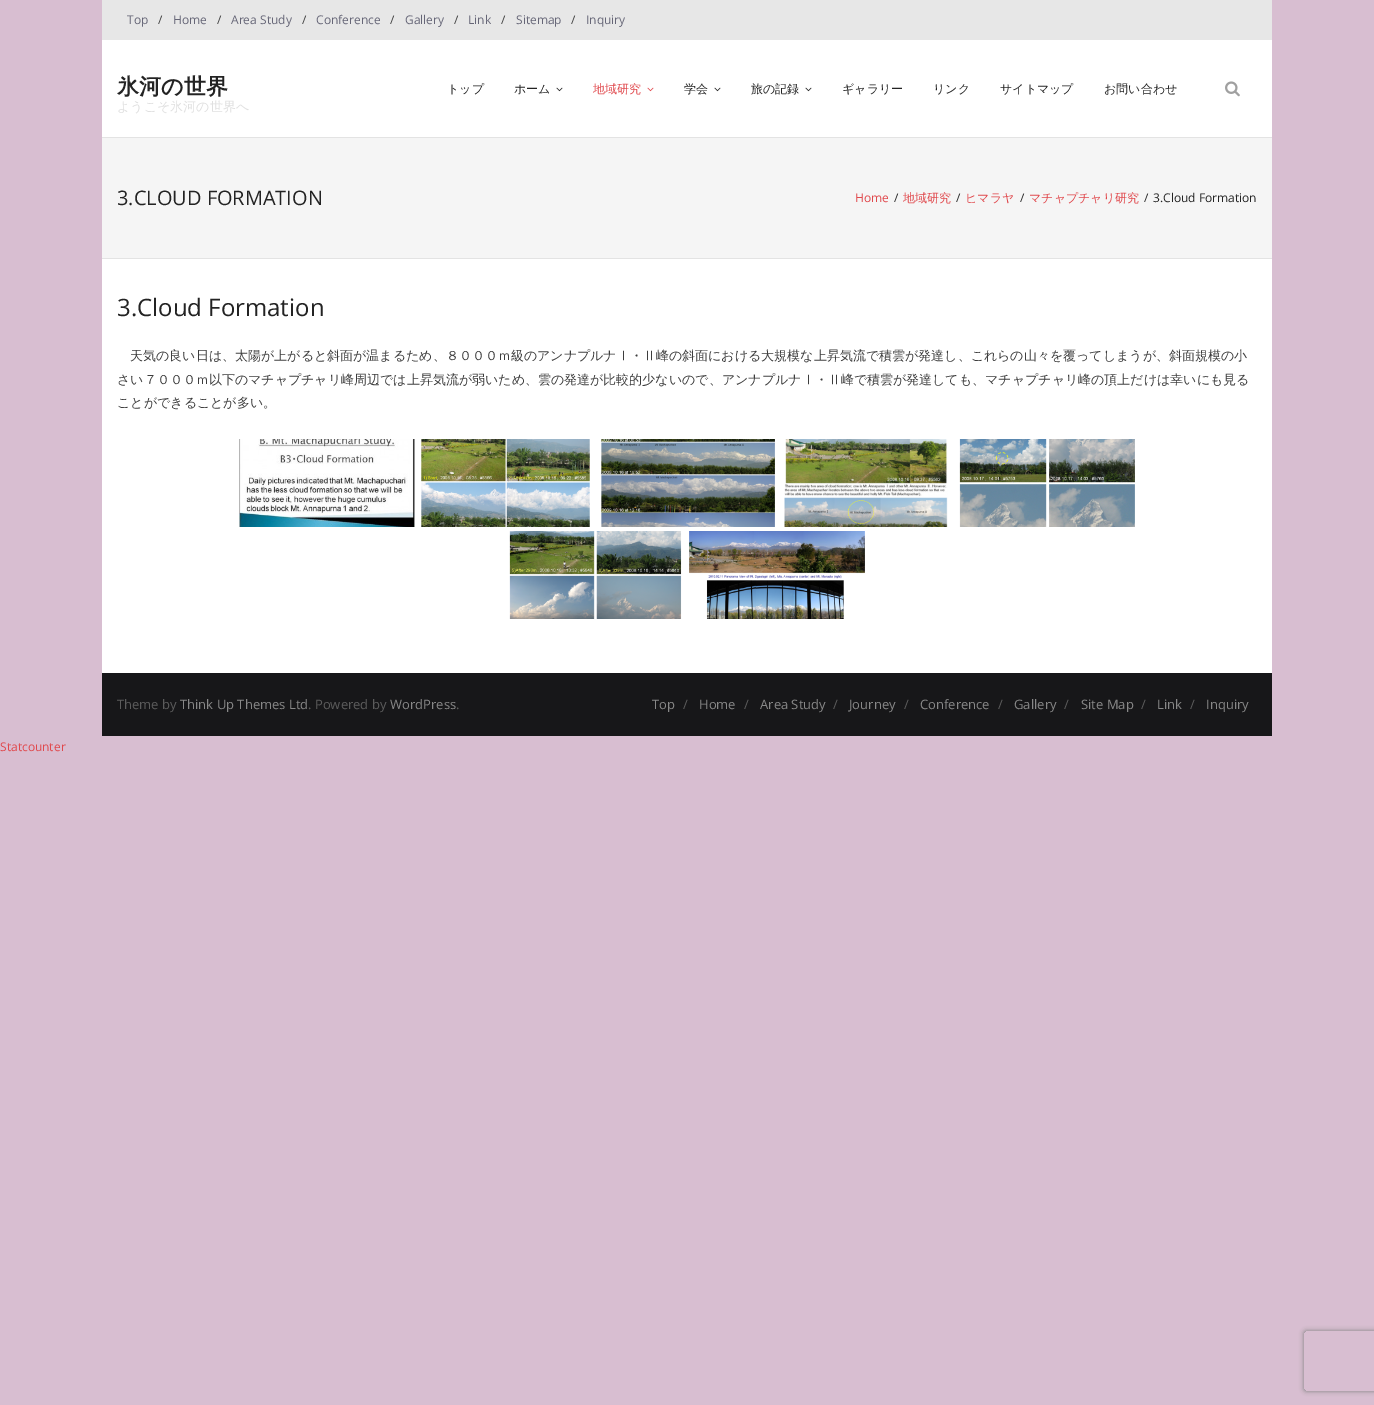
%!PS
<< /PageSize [1374 1405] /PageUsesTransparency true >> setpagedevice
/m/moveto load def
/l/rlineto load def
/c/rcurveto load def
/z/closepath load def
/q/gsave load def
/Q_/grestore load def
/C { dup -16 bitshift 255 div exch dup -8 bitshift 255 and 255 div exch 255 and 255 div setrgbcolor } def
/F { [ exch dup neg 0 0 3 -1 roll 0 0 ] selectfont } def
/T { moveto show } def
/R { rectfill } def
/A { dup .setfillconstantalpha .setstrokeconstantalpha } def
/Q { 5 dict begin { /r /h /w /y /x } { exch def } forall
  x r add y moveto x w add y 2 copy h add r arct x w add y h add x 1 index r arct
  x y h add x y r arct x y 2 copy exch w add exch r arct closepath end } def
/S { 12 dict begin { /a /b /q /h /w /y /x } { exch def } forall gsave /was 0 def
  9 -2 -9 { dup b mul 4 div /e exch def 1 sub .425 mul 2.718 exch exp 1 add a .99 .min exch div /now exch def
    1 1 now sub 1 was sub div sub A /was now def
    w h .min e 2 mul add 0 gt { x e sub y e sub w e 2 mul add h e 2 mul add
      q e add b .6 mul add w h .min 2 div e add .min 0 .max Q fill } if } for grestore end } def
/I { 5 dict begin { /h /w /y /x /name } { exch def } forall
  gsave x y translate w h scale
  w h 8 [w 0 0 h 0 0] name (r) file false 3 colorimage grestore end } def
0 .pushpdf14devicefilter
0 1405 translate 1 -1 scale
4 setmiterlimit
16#D8BED1 C
0 0 1374 1405 R
16#FFFFFF C
102 40 1170 633 R
16#E7E7E7 C
102 0 1170 40 R
/OpenSans-Regular 12 F
16#666677 C
(Top) 127 24 T
16#3D3D3D C
(/) 158 24 T
16#666677 C
(Home) 173 24 T
16#3D3D3D C
(/) 217 24 T
16#666677 C
(Area Study) 231 24 T
16#3D3D3D C
(/) 302 24 T
16#666677 C
(Conference) 316 24 T
16#3D3D3D C
(/) 390 24 T
16#666677 C
(Gallery) 405 24 T
16#3D3D3D C
(/) 454 24 T
16#666677 C
(Link) 468 24 T
16#3D3D3D C
(/) 501 24 T
16#666677 C
(Sitemap) 516 24 T
16#3D3D3D C
(/) 571 24 T
16#666677 C
(Inquiry) 586 24 T
16#E3E3E3 C
102 137 1170 1 R
/WenQuanYiZenHei-Bold 22 F
16#232323 C
(氷河の世界) 117 94 T
/WenQuanYiZenHei-Medium 13 F
16#E0E0E0 C
(ようこそ氷河の世界へ) 117 111 T
/WenQuanYiZenHei-Medium 12 F
16#232323 C
(トップ) 447 93 T
(ホーム) 514 93 T
(1.rgb) 556 87 7 5 I
16#E0484C C
(地域研究) 593 93 T
(2.rgb) 647 87 7 5 I
16#232323 C
(学会) 684 93 T
(1.rgb) 714 87 7 5 I
(旅の記録) 751 93 T
(1.rgb) 805 87 7 5 I
(ギャラリー) 842 93 T
(リンク) 933 93 T
(サイトマップ) 1000 93 T
(お問い合わせ) 1104 93 T
(3.rgb) 1225 81 15 16 I
16#F5F5F5 C
102 138 1170 120 R
16#E3E3E3 C
102 258 1170 1 R
/OpenSans-Regular 20 F
16#232323 C
(3.CLOUD FORMATION) 117 205 T
/OpenSans-Regular 12 F
16#E0484C C
(Home) 855 202 T
16#232323 C
(/) 894 202 T
/WenQuanYiZenHei-Medium 12 F
16#E0484C C
(地域研究) 903 202 T
/OpenSans-Regular 12 F
16#232323 C
(/) 956 202 T
/WenQuanYiZenHei-Medium 12 F
16#E0484C C
(ヒマラヤ) 965 202 T
/OpenSans-Regular 12 F
16#232323 C
(/) 1020 202 T
/WenQuanYiZenHei-Medium 12 F
16#E0484C C
(マチャプチャリ研究) 1029 202 T
/OpenSans-Regular 12 F
16#232323 C
(/) 1144 202 T
(3.Cloud Formation) 1153 202 T
/OpenSans-Regular 24 F
(3.Cloud Formation) 117 316 T
/WenQuanYiZenHei-Medium 13 F
16#3D3D3D C
(天気の良い日は、太陽が上がると斜面が温まるため、８０００ｍ級のアンナプルナⅠ・Ⅱ峰の斜面における大規模な上昇気流で積雲が発達し、これらの山々を覆ってしまうが、斜面規模の小) 130 360 T
(さい７０００ｍ以下のマチャプチャリ峰周辺では上昇気流が弱いため、雲の発達が比較的少ないので、アンナプルナⅠ・Ⅱ峰で積雲が発達しても、マチャプチャリ峰の頂上だけは幸いにも見る) 117 384 T
(ことができることが多い。) 117 407 T
(4.rgb) 239 439 176 88 I
(5.rgb) 421 439 169 88 I
(6.rgb) 601 439 174 88 I
(7.rgb) 784 439 164 88 I
(8.rgb) 959 439 176 88 I
(9.rgb) 509 531 173 88 I
(10.rgb) 689 531 176 88 I
16#171719 C
102 673 1170 63 R
/OpenSans-Regular 13 F
16#5C5C5C C
(Theme by) 117 709 T
16#888888 C
(Think Up Themes Ltd) 180 709 T
16#5C5C5C C
(. Powered by) 308 709 T
16#888888 C
(WordPress) 390 709 T
16#5C5C5C C
(.) 456 709 T
16#888888 C
(Top) 652 709 T
16#5C5C5C C
(/) 683 709 T
16#888888 C
(Home) 699 709 T
16#5C5C5C C
(/) 744 709 T
16#888888 C
(Area Study) 760 709 T
16#5C5C5C C
(/) 833 709 T
16#888888 C
(Journey) 849 709 T
16#5C5C5C C
(/) 904 709 T
16#888888 C
(Conference) 920 709 T
16#5C5C5C C
(/) 998 709 T
16#888888 C
(Gallery) 1014 709 T
16#5C5C5C C
(/) 1064 709 T
16#888888 C
(Site Map) 1081 709 T
16#5C5C5C C
(/) 1141 709 T
16#888888 C
(Link) 1157 709 T
16#5C5C5C C
(/) 1190 709 T
16#888888 C
(Inquiry) 1206 709 T
/OpenSans-Regular 12 F
16#E0484C C
(Statcounter) 0 751 T
q
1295 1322 m 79 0 l 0 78 l -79 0 l z 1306 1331 m 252 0 l 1 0 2 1 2 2 c 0 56 l 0 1 -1 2 -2 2 c -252 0 l -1 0 -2 -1 -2 -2 c 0 -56 l 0 -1 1 -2 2 -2 c z eoclip newpath
16#808080 C
1304 1331 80 60 2 2.5 1 S
Q_
.poppdf14devicefilter showpage
